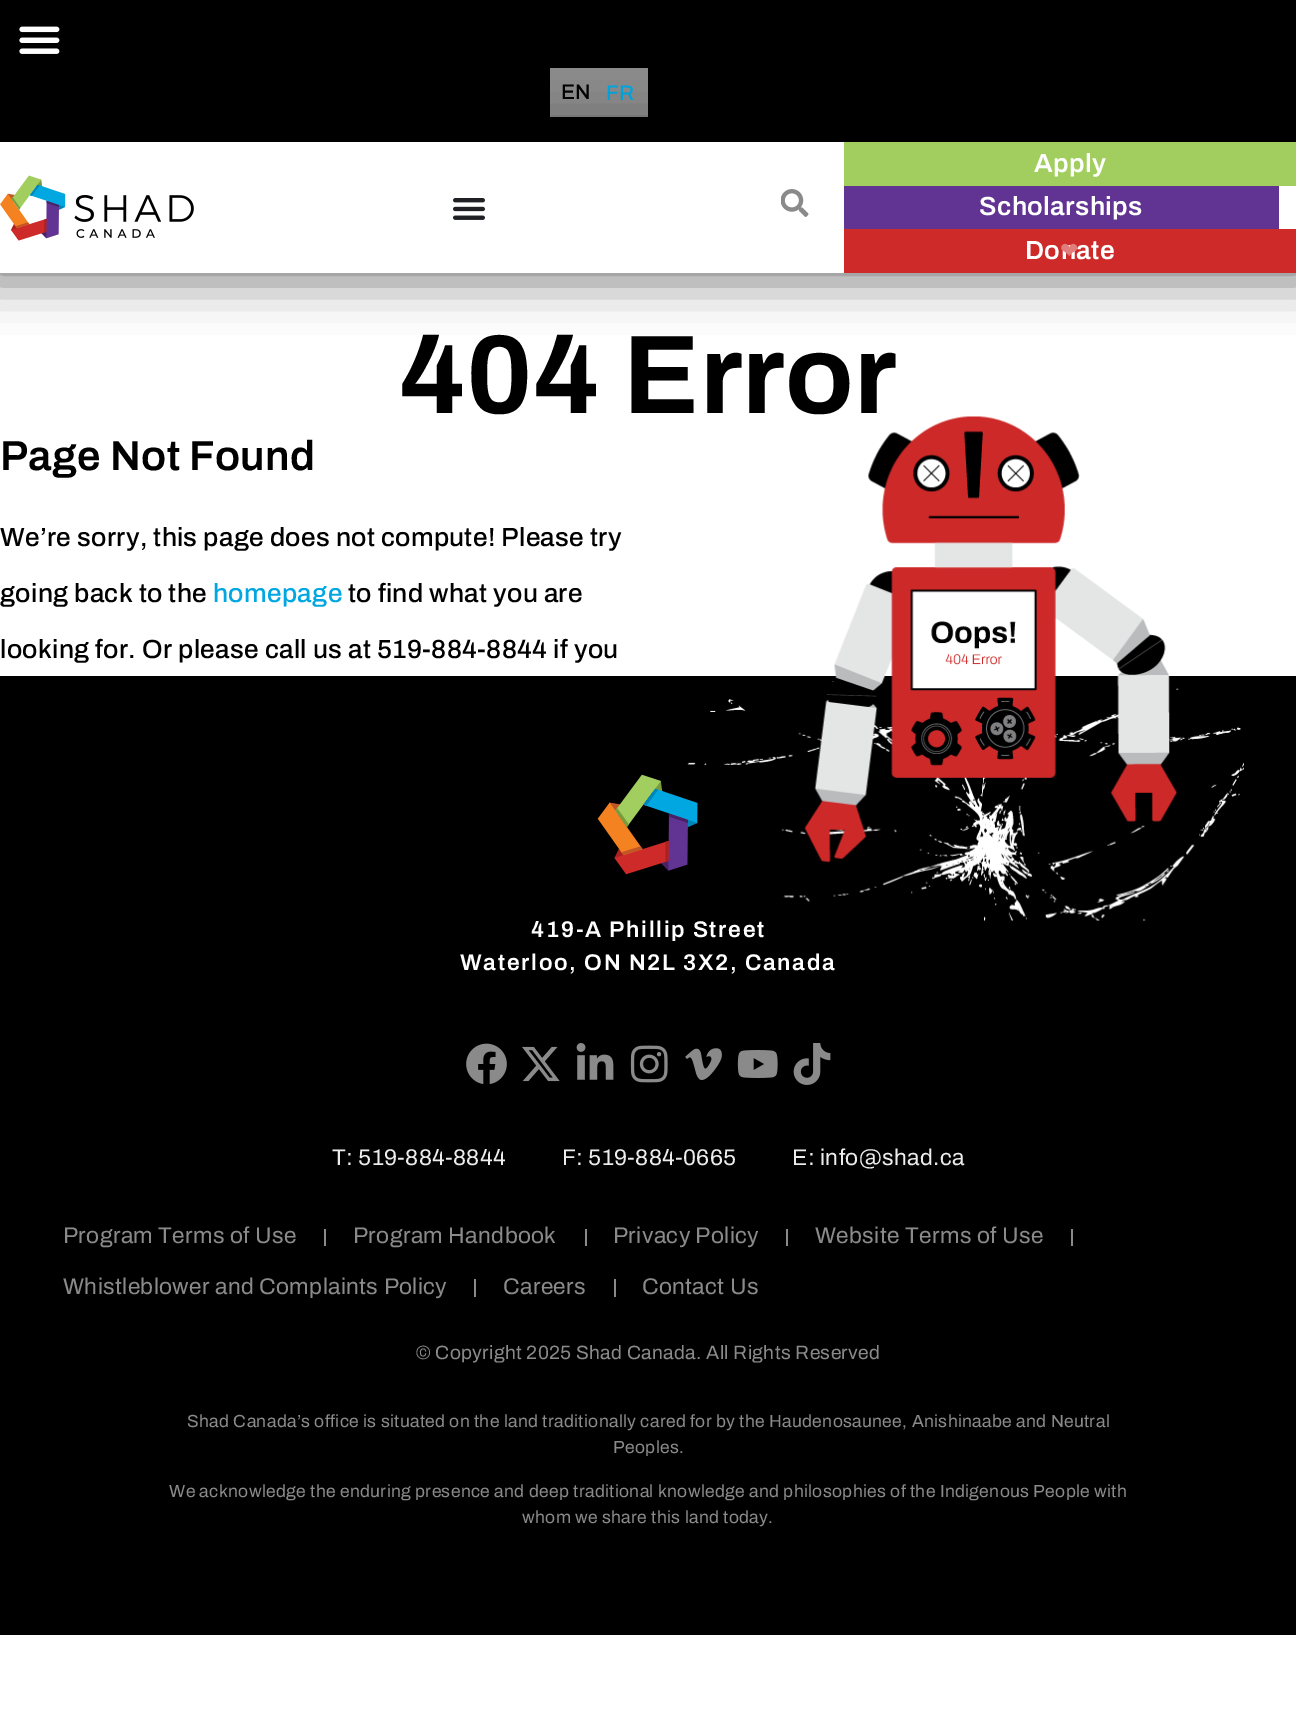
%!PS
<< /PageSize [1296 1735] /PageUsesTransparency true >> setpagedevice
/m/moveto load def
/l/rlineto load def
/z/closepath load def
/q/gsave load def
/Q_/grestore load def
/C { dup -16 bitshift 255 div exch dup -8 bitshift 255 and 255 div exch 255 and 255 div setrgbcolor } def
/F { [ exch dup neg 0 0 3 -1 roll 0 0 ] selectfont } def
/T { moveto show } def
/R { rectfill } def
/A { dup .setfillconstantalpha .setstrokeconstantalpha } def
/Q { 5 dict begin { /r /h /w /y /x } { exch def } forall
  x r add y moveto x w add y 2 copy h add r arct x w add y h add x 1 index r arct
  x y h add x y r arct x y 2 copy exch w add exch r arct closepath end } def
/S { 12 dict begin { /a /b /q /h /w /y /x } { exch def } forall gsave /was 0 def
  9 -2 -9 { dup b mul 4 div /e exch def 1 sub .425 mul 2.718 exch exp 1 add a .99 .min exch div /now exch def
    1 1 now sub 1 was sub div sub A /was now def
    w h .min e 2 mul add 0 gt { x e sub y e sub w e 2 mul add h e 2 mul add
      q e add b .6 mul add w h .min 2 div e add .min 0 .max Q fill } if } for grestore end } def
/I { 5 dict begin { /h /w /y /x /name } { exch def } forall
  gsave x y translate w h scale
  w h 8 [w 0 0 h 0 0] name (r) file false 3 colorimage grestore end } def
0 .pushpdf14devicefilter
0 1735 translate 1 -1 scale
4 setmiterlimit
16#FFFFFF C
0 0 1296 1735 R
16#000000 C
0 0 1296 142 R
(1.rgb) 19 26 41 28 I
16#8A8A8A C
550 68 98 49 R
/Archivo-Medium 21 F
16#000000 C
(EN) 561 99 T
16#00A7E0 C
(FR) 606 100 T
q
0 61 m 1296 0 l 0 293 l -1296 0 l z 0 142 m 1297 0 l 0 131 l -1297 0 l z eoclip newpath
16#000000 C
-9 133 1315 149 0 23.5 .5 S
Q_
(2.rgb) 0 175 194 66 I
(3.rgb) 453 198 32 22 I
(4.rgb) 781 189 28 28 I
16#A1CE5E C
844 142 452 44 R
/Archivo-SemiBold 26.25 F
16#FFFFFF C
1034 172 m .35 0 (Apply) ashow
16#613393 C
844 186 435 43 R
16#FFFFFF C
979 215 m .35 0 (Scholarships) ashow
16#CD2A29 C
844 229 452 44 R
16#FFFFFF C
1025 259 m .35 0 (Donate) ashow
/DejaVuSans-Regular 22 F
16#E17E7D C
(❤) 1060 258 T
/Archivo-Bold 112 F
16#000000 C
399 413 m .35 0 (404 Error) ashow
/Archivo-SemiBold 42 F
0 470 m .35 0 (Page Not Found) ashow
/Archivo-Medium 26.25 F
0 546 m .35 0 (We’re sorry, this page does not compute! Please try) ashow
0 602 m .35 0 (going back to the) ashow
16#00A7E0 C
213 602 m .35 0 (homepage) ashow
16#000000 C
348 602 m .35 0 (to find what you are) ashow
0 658 m .35 0 (looking for. Or please call us at 519-884-8844 if you) ashow
0 676 1296 959 R
(6.rgb) 597 774 101 101 I
/Archivo-SemiBold 22.75 F
16#FFFFFF C
531 937 m 1.75 0 (419-A Phillip Street) ashow
(5.rgb) 687 416 557 505 I
460 970 m 1.75 0 (Waterloo, ON N2L 3X2, Canada) ashow
(7.rgb) 466 1043 41 41 I
(8.rgb) 522 1046 38 36 I
(9.rgb) 576 1043 38 37 I
(10.rgb) 630 1045 38 38 I
(11.rgb) 685 1048 37 32 I
(12.rgb) 737 1050 41 28 I
(13.rgb) 793 1043 38 42 I
/Archivo-Regular 22.75 F
16#ECECEC C
332 1165 m .35 0 (T: 519-884-8844) ashow
562 1165 m .35 0 (F: 519-884-0665) ashow
792 1165 m .35 0 (E: info@shad.ca) ashow
16#8A8A8A C
63 1243 m .35 0 (Program Terms of Use) ashow
324 1229 2 17 R
353 1243 m .35 0 (Program Handbook) ashow
585 1229 2 17 R
613 1243 m .35 0 (Privacy Policy) ashow
786 1229 2 17 R
815 1243 m .35 0 (Website Terms of Use) ashow
1071 1229 2 17 R
63 1294 m .35 0 (Whistleblower and Complaints Policy) ashow
474 1279 2 18 R
503 1294 m .35 0 (Careers) ashow
614 1279 2 18 R
642 1294 m .35 0 (Contact Us) ashow
/Archivo-Regular 19.25 F
416 1359 m .35 0 (© Copyright 2025 Shad Canada. All Rights Reserved) ashow
/Archivo-Regular 17.5 F
187 1427 m .35 0 (Shad Canada’s office is situated on the land traditionally cared for by the Haudenosaunee, Anishinaabe and Neutral) ashow
613 1453 m .35 0 (Peoples.) ashow
169 1497 m .35 0 (We acknowledge the enduring presence and deep traditional knowledge and philosophies of the Indigenous People with) ashow
522 1523 m .35 0 (whom we share this land today.) ashow
.poppdf14devicefilter showpage
